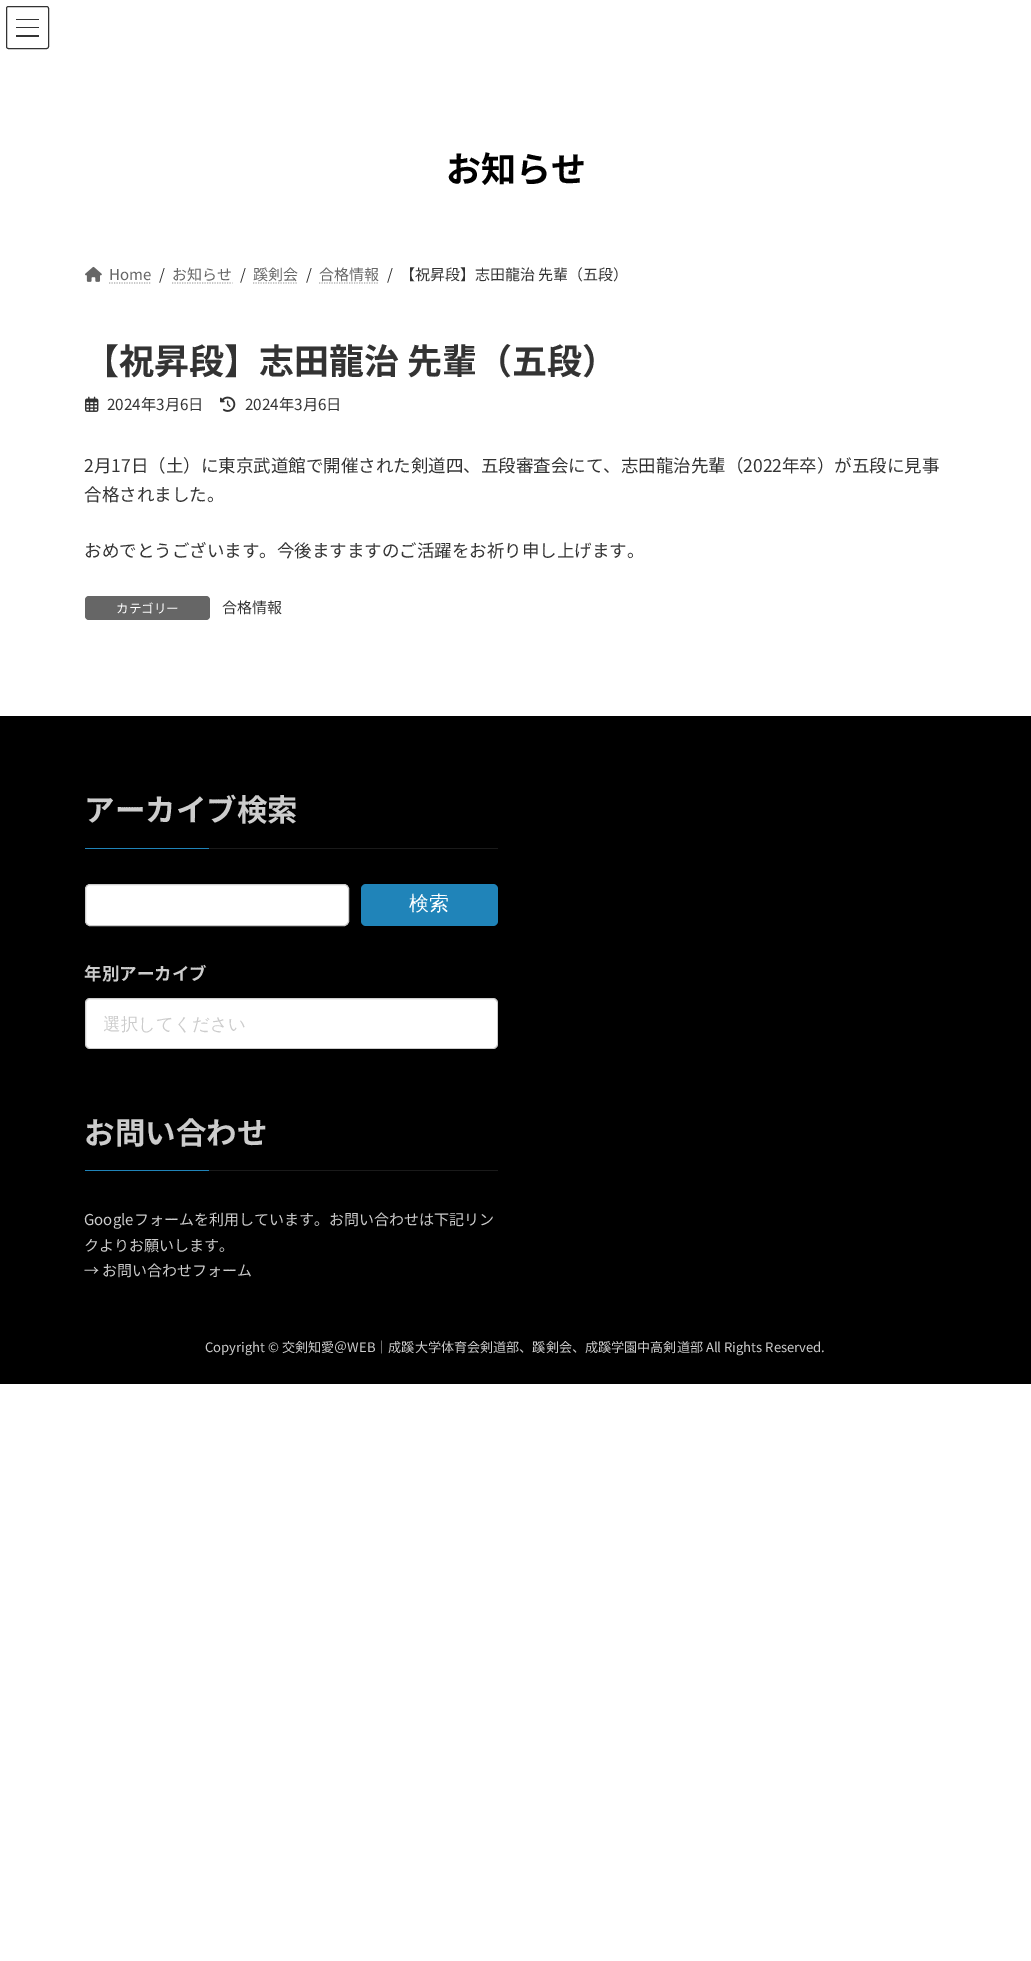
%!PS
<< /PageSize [1031 1961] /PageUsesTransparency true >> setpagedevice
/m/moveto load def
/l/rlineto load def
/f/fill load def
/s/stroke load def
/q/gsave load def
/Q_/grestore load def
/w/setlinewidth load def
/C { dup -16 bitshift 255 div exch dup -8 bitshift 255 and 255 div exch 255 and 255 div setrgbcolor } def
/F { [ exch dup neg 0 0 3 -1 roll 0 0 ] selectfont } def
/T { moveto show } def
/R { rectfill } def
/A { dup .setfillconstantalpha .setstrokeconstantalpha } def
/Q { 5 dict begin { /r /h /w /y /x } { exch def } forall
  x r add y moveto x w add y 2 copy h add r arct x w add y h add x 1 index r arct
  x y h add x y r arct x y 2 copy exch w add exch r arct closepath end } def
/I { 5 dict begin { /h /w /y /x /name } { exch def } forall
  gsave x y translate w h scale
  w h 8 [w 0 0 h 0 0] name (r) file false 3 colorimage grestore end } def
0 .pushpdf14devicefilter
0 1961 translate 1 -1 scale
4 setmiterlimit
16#FFFFFF C
0 0 1031 1961 R
16#333333 C
16 19 23 1 R
16 27 23 1 R
16 35 23 2 R
6.5 6.5 42 42 2 Q s
/NotoSansJP-Bold 35 F
16#000000 C
(お知らせ) 446 182 T
(1.rgb) 85 266 17 16 I
/NotoSansJP-Regular 15 F
16#666666 C
(Home) 109 280 T
16#B3B3B3 C
1.2 w
[1.25 1.25] 0 setdash
109 283 m 42.5 0 l s
16#333333 C
(/) 159 280 T
16#666666 C
(お知らせ) 172 280 T
16#B3B3B3 C
172 283 m 60.5 0 l s
16#333333 C
(/) 240 280 T
16#666666 C
(蹊剣会) 253 280 T
16#B3B3B3 C
253 283 m 45 0 l s
16#333333 C
(/) 306 280 T
16#666666 C
(合格情報) 319 280 T
16#B3B3B3 C
319 283 m 60 0 l s
16#333333 C
(/) 387 280 T
(【祝昇段】志田龍治 先輩（五段）) 400 280 T
/NotoSansJP-Bold 35 F
(【祝昇段】志田龍治 先輩（五段）) 84 374 T
(2.rgb) 85 396 14 16 I
/NotoSansJP-Regular 15.25 F
(2024年3月6日) 107 410 T
(3.rgb) 220 396 16 16 I
(2024年3月6日) 245 410 T
/NotoSansJP-Regular 17.5 F
(2月17日（土）に東京武道館で開催された剣道四、五段審査会にて、志田龍治先輩（2022年卒）が五段に見事) 84 472 T
(合格されました。) 84 501 T
(おめでとうございます。今後ますますのご活躍をお祈り申し上げます。) 84 557 T
16#666666 C
85 596 125 24 4 Q f
/NotoSansJP-Regular 12.5 F
16#FFFFFF C
(カテゴリー) 116 613 T
/NotoSansJP-Regular 15 F
16#333333 C
(合格情報) 222 613 T
16#000000 C
0 716 1031 668 R
16#1A1A1A C
209 848 289 1 R
/NotoSansJP-Bold 30.5 F
16#CCCCCC C
(アーカイブ検索) 84 821 T
16#2084B9 C
85 848 124 1 R
16#FFFFFF C
85.5 884.5 263 41 4.5 Q q f Q_
16#CCCCCC C
1 w
[] 0 setdash
s
16#2084B9 C
361 884 137 42 5 Q f
/WenQuanYiZenHei-Medium 20 F
16#FFFFFF C
(検索) 409 910 T
/NotoSansJP-Bold 17.5 F
16#CCCCCC C
(年別アーカイブ) 84 980 T
16#FFFFFF C
85 998 413 51 5 Q f
0.2 A
16#000000 C
85.5 998.5 412 50 4.5 Q s
q
104 1014 375 20 rectclip
/WenQuanYiZenHei-Medium 17.5 F
1 A
16#CCCCCC C
(選択してください) 103 1030 T
Q_
1 A
16#1A1A1A C
209 1170 289 1 R
/NotoSansJP-Bold 30.5 F
16#CCCCCC C
(お問い合わせ) 84 1144 T
16#2084B9 C
85 1170 124 1 R
/NotoSansJP-Regular 15 F
16#CCCCCC C
(Googleフォームを利用しています。お問い合わせは下記リン) 84 1225 T
(クよりお願いします。) 84 1251 T
(→ お問い合わせフォーム) 84 1276 T
/NotoSansJP-Regular 13.1 F
(Copyright © 交剣知愛＠WEB｜成蹊大学体育会剣道部、蹊剣会、成蹊学園中高剣道部 All Rights Reserved.) 205 1352 T
.poppdf14devicefilter showpage
